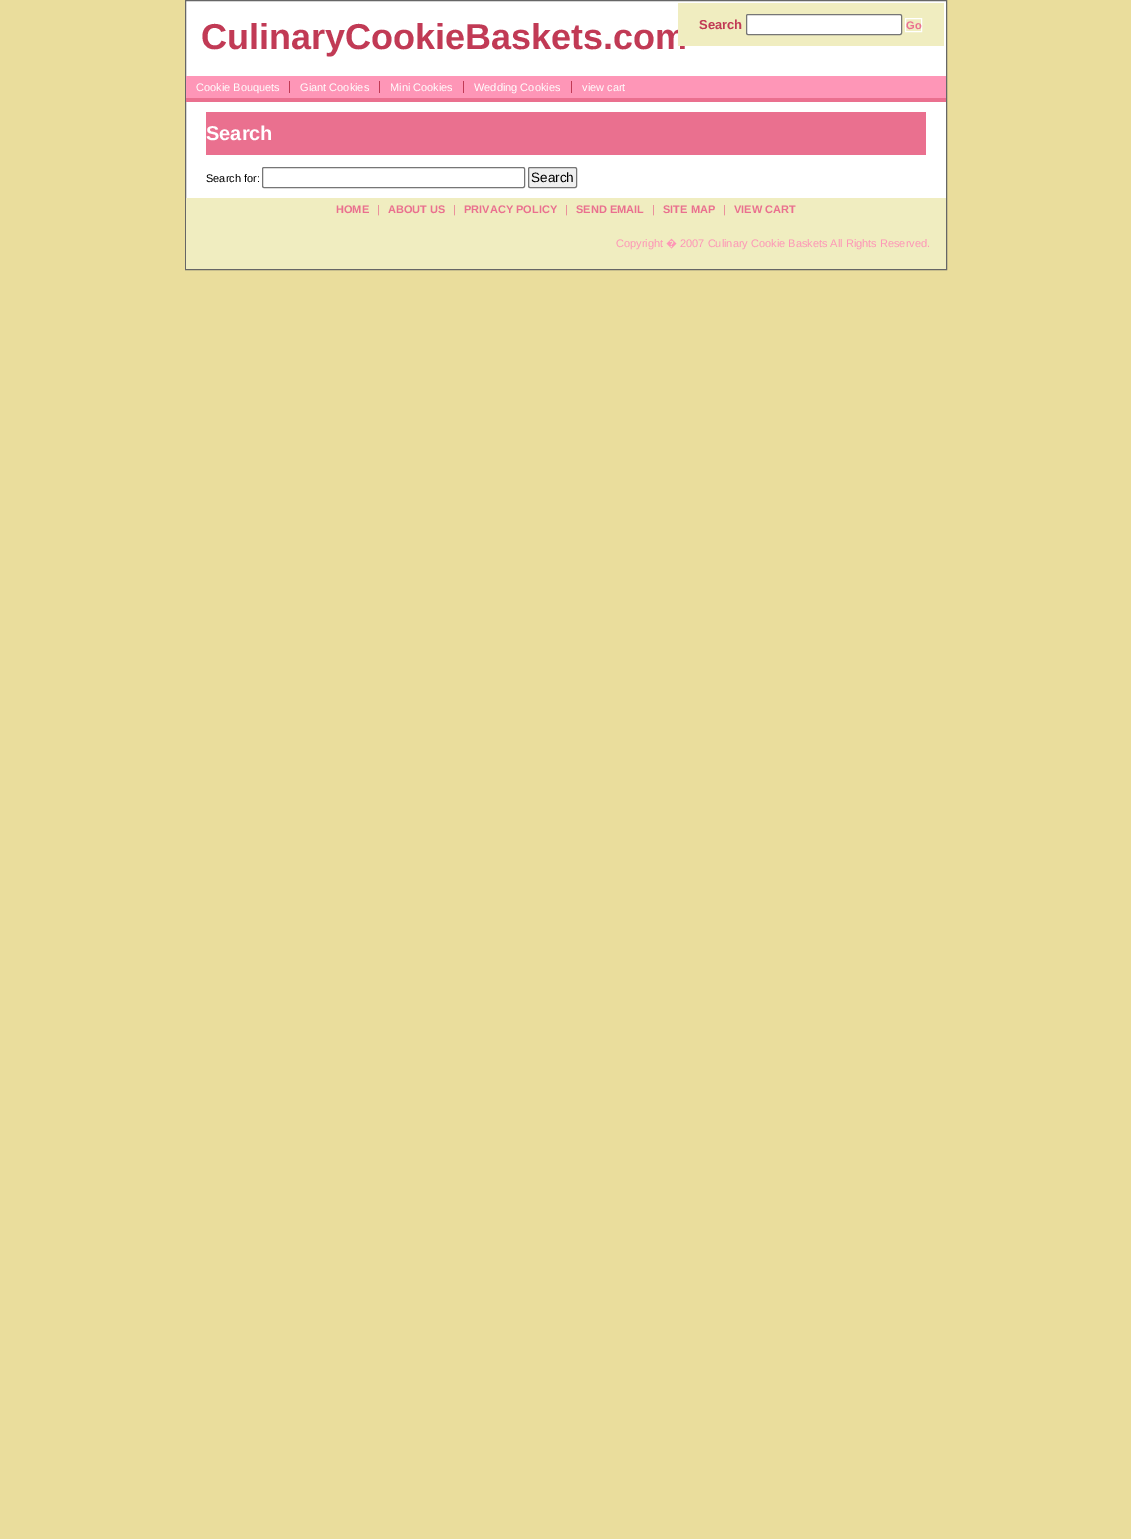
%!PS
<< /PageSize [1131 1539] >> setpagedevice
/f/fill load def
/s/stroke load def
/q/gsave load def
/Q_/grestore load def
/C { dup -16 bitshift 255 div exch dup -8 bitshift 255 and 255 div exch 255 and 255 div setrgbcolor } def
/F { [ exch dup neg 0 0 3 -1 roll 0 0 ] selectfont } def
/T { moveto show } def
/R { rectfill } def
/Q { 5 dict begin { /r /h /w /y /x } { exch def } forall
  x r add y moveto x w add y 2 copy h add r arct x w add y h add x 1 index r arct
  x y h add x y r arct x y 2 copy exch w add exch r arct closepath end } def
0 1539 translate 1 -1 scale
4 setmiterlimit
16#EADD9C C
0 0 1131 1539 R
16#FFFFFF C
186 1 760 197 R
16#666666 C
185.5 .5 761 269 rectstroke
/LiberationSans-Bold 36 F
16#C13A55 C
(CulinaryCookieBaskets.com) 201 49 T
16#F0EDC0 C
678 3 266 43 R
/LiberationSans-Bold 13 F
16#C13A55 C
(Search) 699 29 T
16#FFFFFF C
746.5 14.5 155 20 1.5 Q q f Q_
16#767676 C
s
16#FFFFFF C
905.5 18.5 16 13 rectstroke
/LiberationSans-Bold 11 F
16#EA708F C
(Go) 906 29 T
16#FE96B7 C
186 76 760 22 R
16#EA708F C
186 98 760 4 R
/LiberationSans-Regular 11 F
16#FFFFFF C
(Cookie Bouquets) 196 91 T
16#C13A55 C
289 81 1 12 R
16#FFFFFF C
(Giant Cookies) 300 91 T
16#C13A55 C
379 81 1 12 R
16#FFFFFF C
(Mini Cookies) 390 91 T
16#C13A55 C
463 81 1 12 R
16#FFFFFF C
(Wedding Cookies) 474 91 T
16#C13A55 C
571 81 1 12 R
16#FFFFFF C
(view cart) 582 91 T
16#EA708F C
206 112 720 43 R
/LiberationSans-Bold 20 F
16#FFFFFF C
(Search) 206 140 T
/LiberationSans-Regular 11 F
16#000000 C
(Search for:) 206 182 T
16#767676 C
262.5 167.5 262 20 1.5 Q s
16#EFEFEF C
528.5 167.5 48 20 1.5 Q q f Q_
16#767676 C
s
/LiberationSans-Regular 13.5 F
16#000000 C
(Search) 531 182 T
16#F0EDC0 C
186 198 760 71 R
/LiberationSans-Bold 11 F
16#EA708F C
(HOME) 336 213 T
/LiberationSans-Regular 11 F
(|) 377 213 T
/LiberationSans-Bold 11 F
(ABOUT US) 388 213 T
/LiberationSans-Regular 11 F
(|) 453 213 T
/LiberationSans-Bold 11 F
(PRIVACY POLICY) 464 213 T
/LiberationSans-Regular 11 F
(|) 565 213 T
/LiberationSans-Bold 11 F
(SEND EMAIL) 576 213 T
/LiberationSans-Regular 11 F
(|) 652 213 T
/LiberationSans-Bold 11 F
(SITE MAP) 663 213 T
/LiberationSans-Regular 11 F
(|) 723 213 T
/LiberationSans-Bold 11 F
(VIEW CART) 734 213 T
/LiberationSans-Regular 11 F
16#FE96B7 C
(Copyright) 616 247 T
/NotoSans-Regular 11 F
(�) 666 247 T
/LiberationSans-Regular 11 F
(2007 Culinary Cookie Baskets All Rights Reserved.) 680 247 T
showpage
